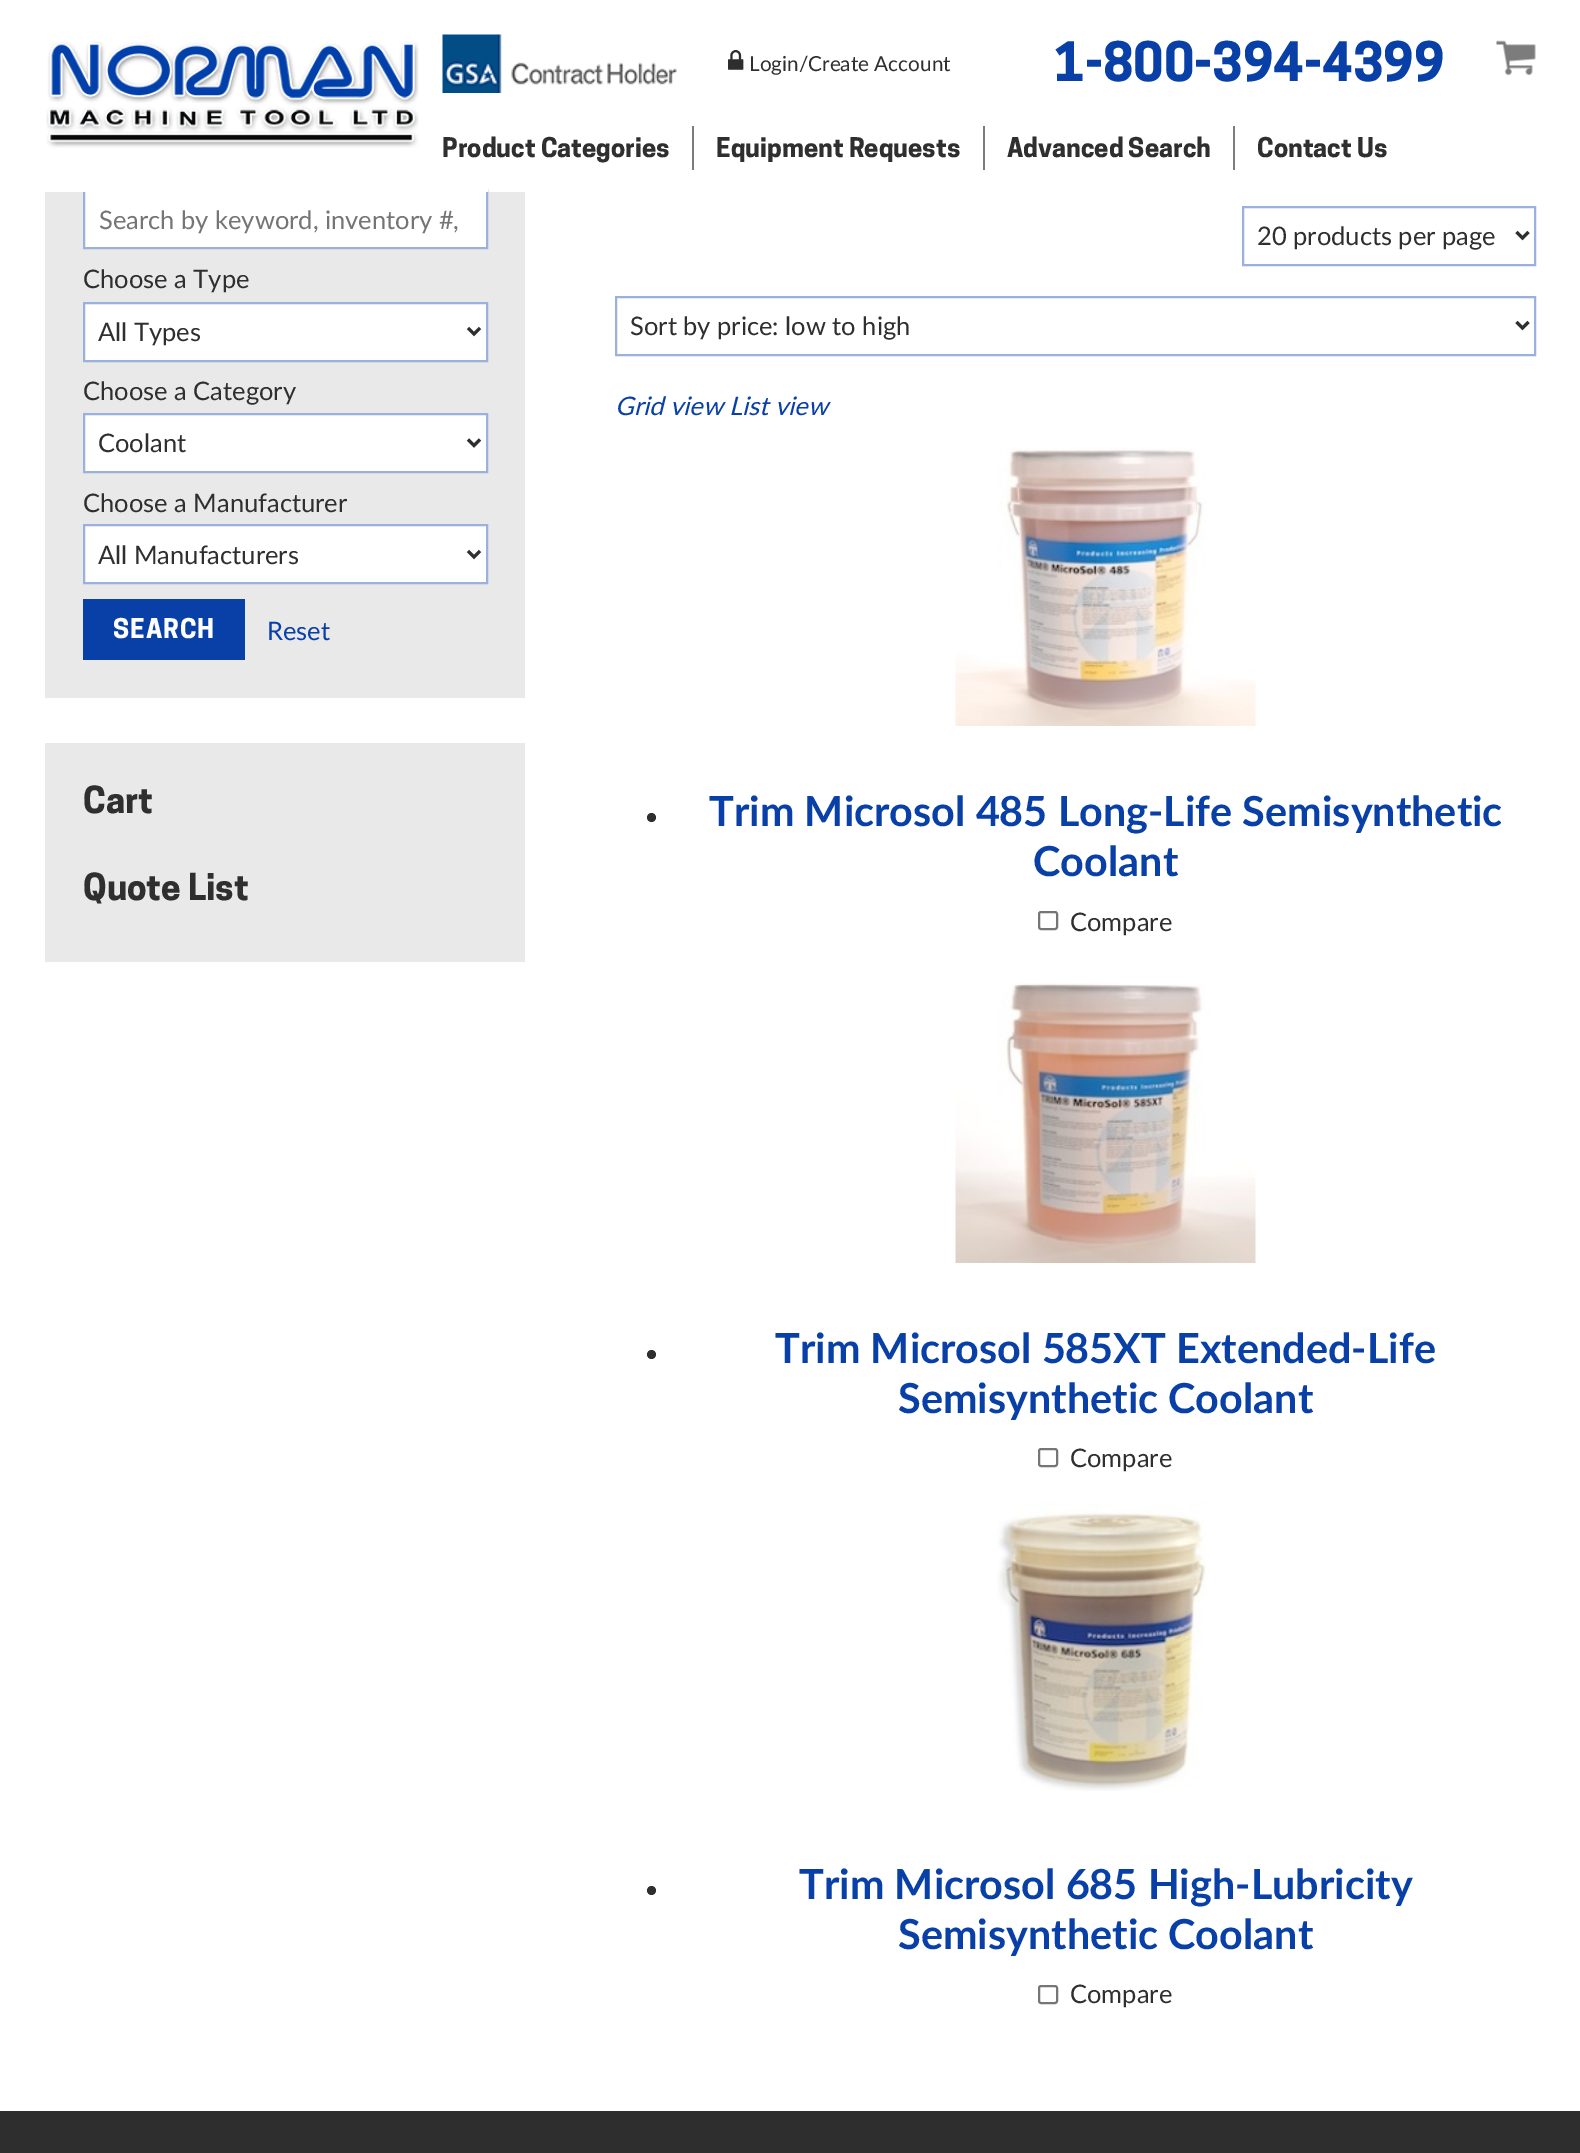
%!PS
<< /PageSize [1580 2153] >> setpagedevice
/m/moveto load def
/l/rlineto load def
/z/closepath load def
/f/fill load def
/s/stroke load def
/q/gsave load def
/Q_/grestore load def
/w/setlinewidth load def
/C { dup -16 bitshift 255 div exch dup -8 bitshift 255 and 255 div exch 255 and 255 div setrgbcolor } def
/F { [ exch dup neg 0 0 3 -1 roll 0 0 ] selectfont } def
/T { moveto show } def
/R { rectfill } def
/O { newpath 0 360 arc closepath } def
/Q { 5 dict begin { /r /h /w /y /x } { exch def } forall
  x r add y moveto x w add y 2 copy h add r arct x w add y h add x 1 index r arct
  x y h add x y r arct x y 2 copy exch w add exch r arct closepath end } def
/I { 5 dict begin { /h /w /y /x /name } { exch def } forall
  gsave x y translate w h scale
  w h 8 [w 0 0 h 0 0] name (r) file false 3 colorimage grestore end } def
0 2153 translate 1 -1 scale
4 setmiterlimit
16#FFFFFF C
0 0 1580 2153 R
16#E9E9E9 C
45 192 480 506 R
16#FFFFFF C
85 192 401 55 R
16#9AB1DD C
2 w
84 190 403 58 rectstroke
16#FFFFFF C
83 189 405 3 R
(1.rgb) 46 41 373 107 I
(2.rgb) 442 34 235 59 I
(3.rgb) 728 50 16 20 I
/Lato-Regular 20.75 F
16#2F2F2F C
(Login/Create Account) 749 71 T
/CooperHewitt-Bold 51 F
16#0940A8 C
(1-800-394-4399) 1054 81 T
(4.rgb) 1496 40 40 36 I
/CooperHewitt-Bold 25.5 F
16#2F2F2F C
(Product Categories) 442 157 T
16#7C7C7C C
692 126 2 44 R
16#2F2F2F C
(Equipment Requests) 716 157 T
16#7C7C7C C
983 126 2 44 R
16#2F2F2F C
(Advanced Search) 1007 157 T
16#7C7C7C C
1233 126 2 44 R
16#2F2F2F C
(Contact Us) 1257 157 T
/Lato-Regular 25.5 F
16#757575 C
(Search by keyword, inventory #,) 99 229 T
16#2F2F2F C
(Choose a Type) 83 288 T
16#FFFFFF C
84 303 m 403 0 l 0 58 l -403 0 l z q f Q_
16#9AB1DD C
s
16#2F2F2F C
3 w
468 328 m 6 6 l 6 -6 l s
(All Types) 98 341 T
(Choose a Category) 83 400 T
16#FFFFFF C
84 414 m 403 0 l 0 58 l -403 0 l z q f Q_
16#9AB1DD C
2 w
s
16#2F2F2F C
3 w
468 439.5 m 6 6 l 6 -6 l s
(Coolant) 98 452 T
(Choose a Manufacturer) 83 512 T
16#FFFFFF C
84 525 m 403 0 l 0 58 l -403 0 l z q f Q_
16#9AB1DD C
2 w
s
16#2F2F2F C
3 w
468 551 m 6 6 l 6 -6 l s
(All Manufacturers) 98 564 T
16#0940A8 C
83 599 162 61 R
/CooperHewitt-Bold 25.5 F
16#FFFFFF C
113 638 m 1 0 (SEARCH) ashow
/Lato-Regular 25.5 F
16#0940A8 C
(Reset) 267 640 T
16#E9E9E9 C
45 743 480 219 R
/CooperHewitt-Bold 35 F
16#2F2F2F C
(Cart) 83 813 T
(Quote List) 83 900 T
16#9AB1DD C
2 w
1243 207 292 58 rectstroke
16#2F2F2F C
3 w
1516.5 232 m 6 6 l 6 -6 l s
/Lato-Regular 25.5 F
(20 products per page) 1257 245 T
16#9AB1DD C
2 w
616 297 919 58 rectstroke
16#2F2F2F C
3 w
1516.5 322 m 6 6 l 6 -6 l s
(Sort by price: low to high) 630 335 T
/Lato-Italic 25.5 F
16#0940A8 C
(Grid view List view) 615 415 T
16#2F2F2F C
651.5 817.5 4.5 O f
(5.rgb) 955 448 301 278 I
/Lato-Bold 41.4 F
16#0940A8 C
(Trim Microsol 485 Long-Life Semisynthetic) 709 826 T
(Coolant) 1033 876 T
16#767676 C
2 w
1039 912 18 17 2 Q s
/Lato-Regular 25.5 F
16#2F2F2F C
(Compare) 1070 931 T
651.5 1354.5 4.5 O f
(6.rgb) 955 983 301 280 I
/Lato-Bold 41.4 F
16#0940A8 C
(Trim Microsol 585XT Extended-Life) 775 1363 T
(Semisynthetic Coolant) 898 1413 T
16#767676 C
1039 1449 18 17 2 Q s
/Lato-Regular 25.5 F
16#2F2F2F C
(Compare) 1070 1467 T
651.5 1890.5 4.5 O f
(7.rgb) 997 1499 210 292 I
/Lato-Bold 41.4 F
16#0940A8 C
(Trim Microsol 685 High-Lubricity) 799 1899 T
(Semisynthetic Coolant) 898 1949 T
16#767676 C
1039 1986 18 17 2 Q s
/Lato-Regular 25.5 F
16#2F2F2F C
(Compare) 1070 2003 T
16#2E2E2E C
0 2111 1580 42 R
showpage
